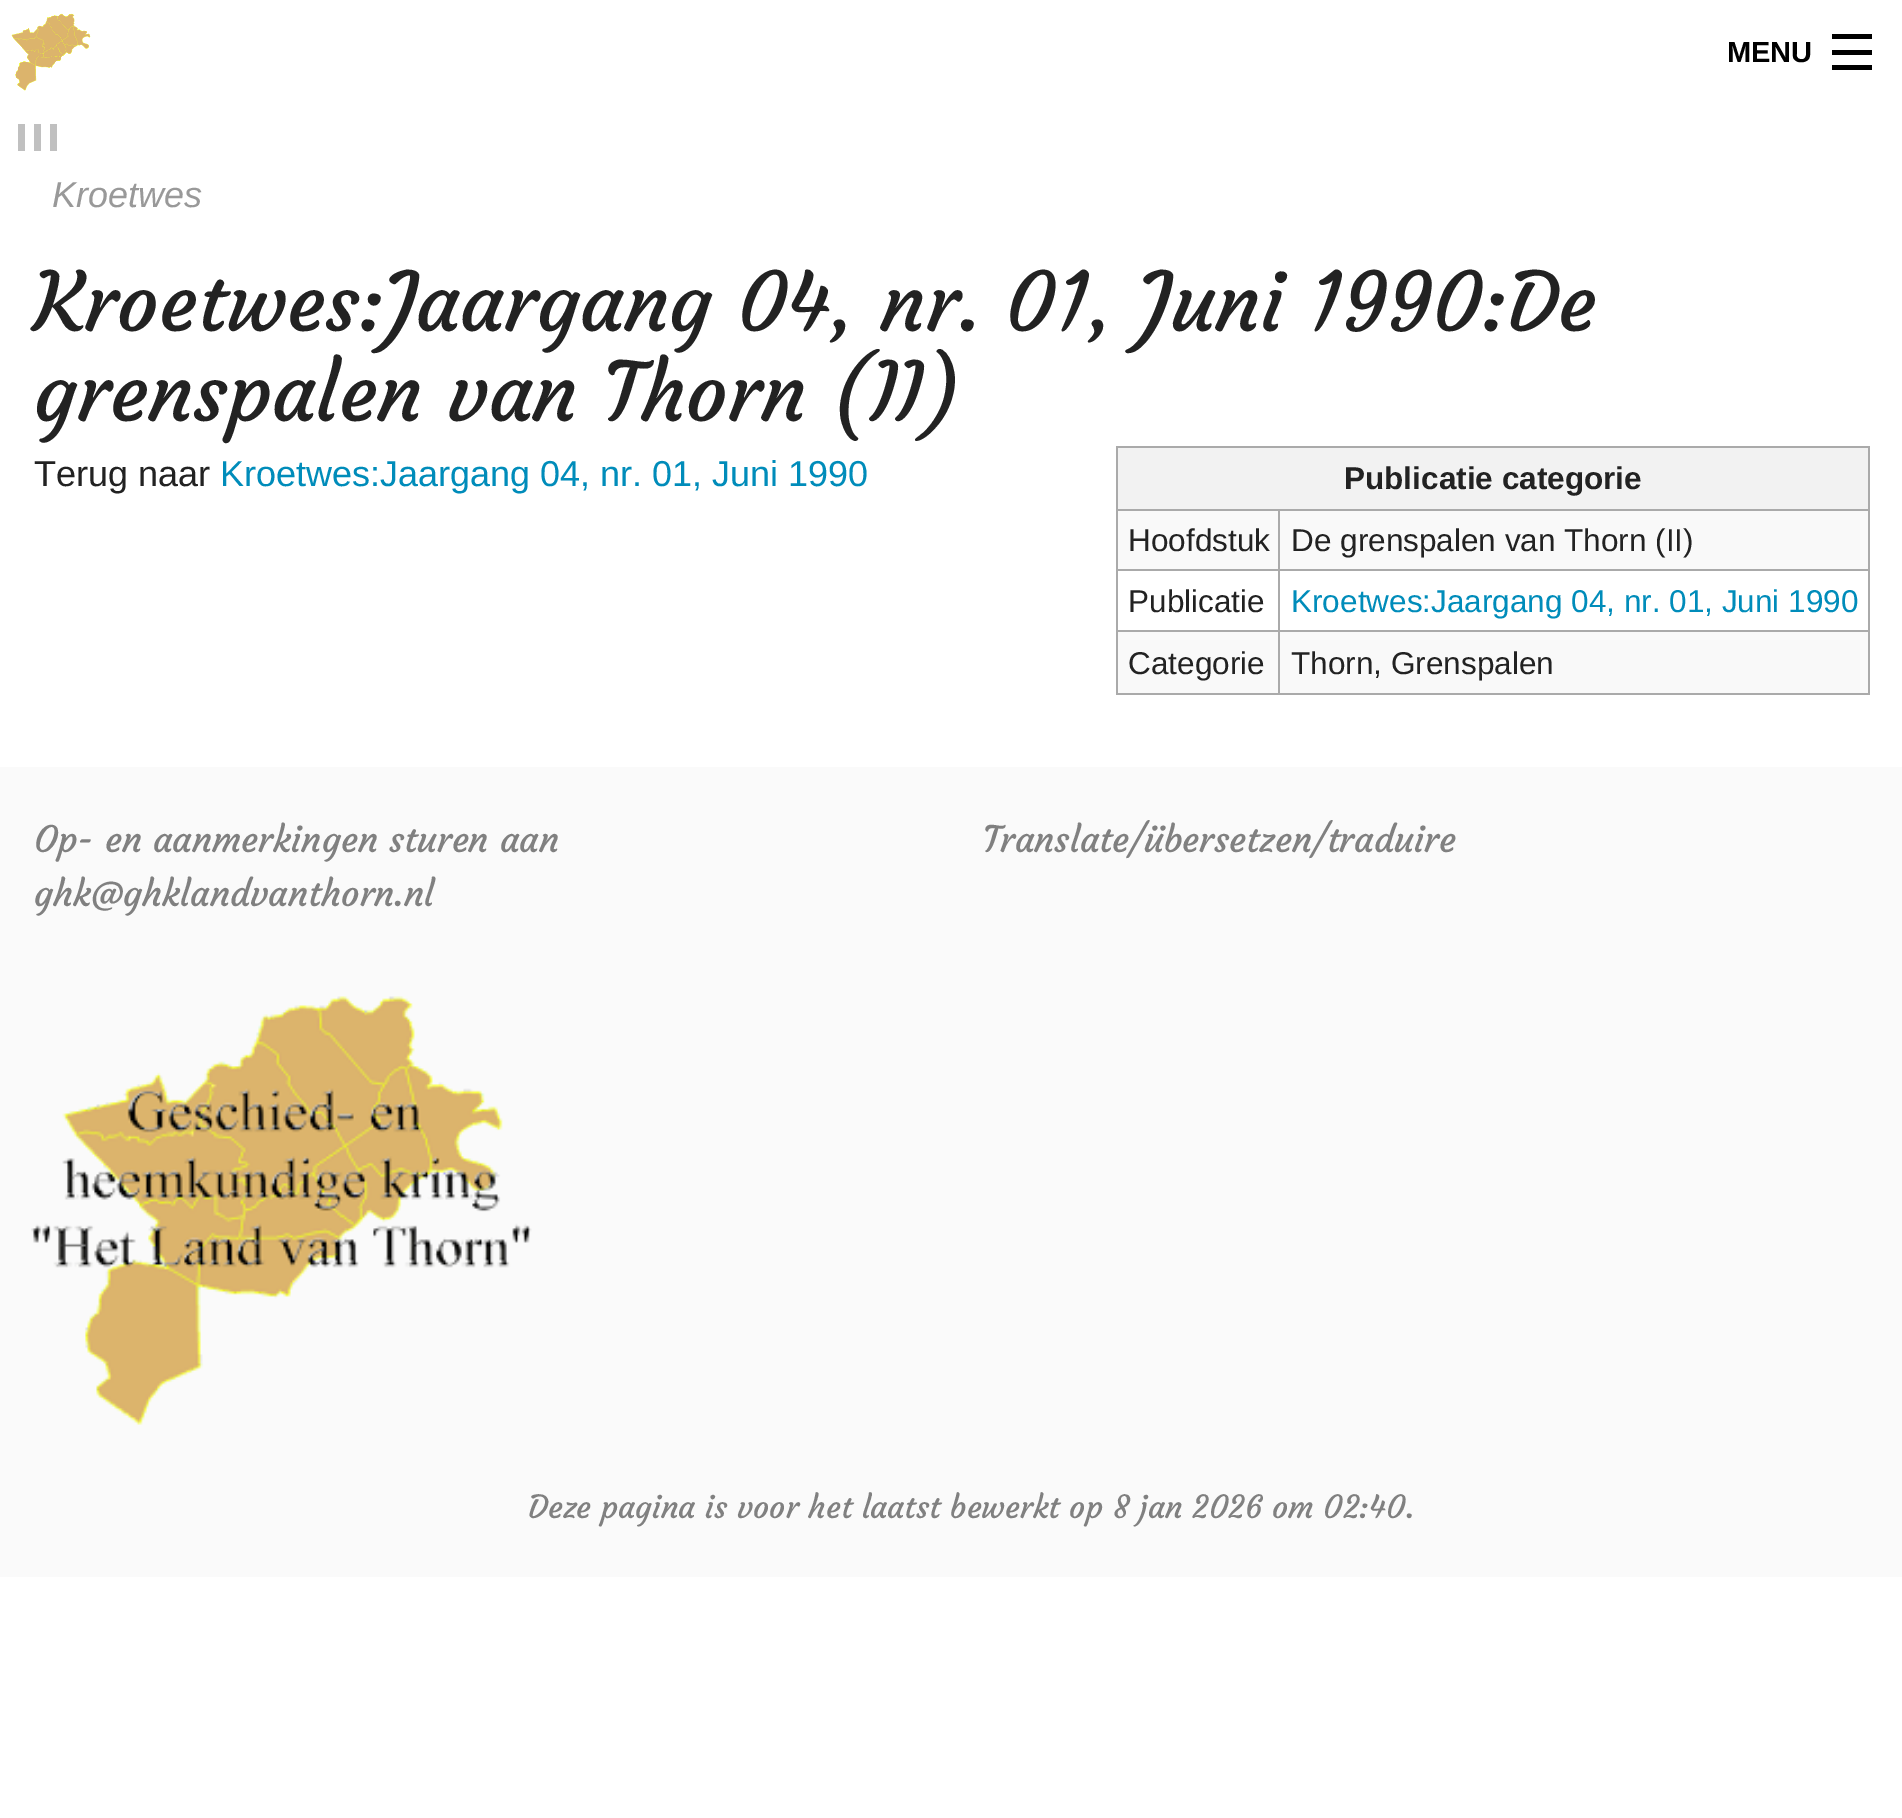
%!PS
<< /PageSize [1902 1818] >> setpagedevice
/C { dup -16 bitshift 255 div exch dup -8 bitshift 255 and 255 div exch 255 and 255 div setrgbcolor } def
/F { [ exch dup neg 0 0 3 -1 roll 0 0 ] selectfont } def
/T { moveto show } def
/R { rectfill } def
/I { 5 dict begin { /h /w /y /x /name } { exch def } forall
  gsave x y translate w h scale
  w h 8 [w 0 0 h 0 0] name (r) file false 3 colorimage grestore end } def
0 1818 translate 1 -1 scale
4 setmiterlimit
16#FFFFFF C
0 0 1902 1818 R
(1.rgb) 11 13 80 78 I
/LiberationSans-Bold 29 F
16#000000 C
(MENU) 1727 62 T
1832 65 40 5 R
1832 50 40 5 R
1832 34 40 5 R
16#C0C0C0 C
34 124 7 27 R
18 124 7 27 R
50 124 7 27 R
/LiberationSans-Italic 36 F
16#999999 C
(Kroetwes) 52 207 T
/Courgette-Regular 81 F
16#222222 C
(Kroetwes:Jaargang 04, nr. 01, Juni 1990:De) 34 331 T
(grenspalen van Thorn \(II\)) 34 421 T
/LiberationSans-Regular 36 F
(Terug naar) 34 486 T
16#008CBA C
(Kroetwes:Jaargang 04, nr. 01, Juni 1990) 220 486 T
16#AAAAAA C
1116 446 754 2 R
1868 446 2 249 R
1116 693 754 2 R
1116 446 2 249 R
16#F2F2F2 C
1118 448 750 61 R
/LiberationSans-Bold 31.5 F
16#222222 C
(Publicatie categorie) 1344 489 T
16#F9F9F9 C
1118 511 750 58 R
16#AAAAAA C
1278 509 592 2 R
1278 569 592 2 R
1278 630 592 2 R
16#F9F9F9 C
1118 632 750 61 R
16#AAAAAA C
1278 630 2 65 R
1116 630 164 2 R
1278 569 2 63 R
1116 569 164 2 R
1278 509 2 63 R
1116 509 164 2 R
/LiberationSans-Regular 31.5 F
16#222222 C
(Hoofdstuk) 1128 551 T
(De grenspalen van Thorn \(II\)) 1291 551 T
(Publicatie) 1128 612 T
16#008CBA C
(Kroetwes:Jaargang 04, nr. 01, Juni 1990) 1291 612 T
16#222222 C
(Categorie) 1128 674 T
(Thorn, Grenspalen) 1291 674 T
16#FAFAFA C
0 767 1902 810 R
/Courgette-Regular 36 F
16#808080 C
(Op- en aanmerkingen sturen aan) 34 852 T
(ghk@ghklandvanthorn.nl) 34 906 T
(Translate/übersetzen/traduire) 983 852 T
(2.rgb) 31 996 501 429 I
/Courgette-Regular 31.5 F
(Deze pagina is voor het laatst bewerkt op 8 jan 2026 om 02:40.) 528 1518 T
showpage
